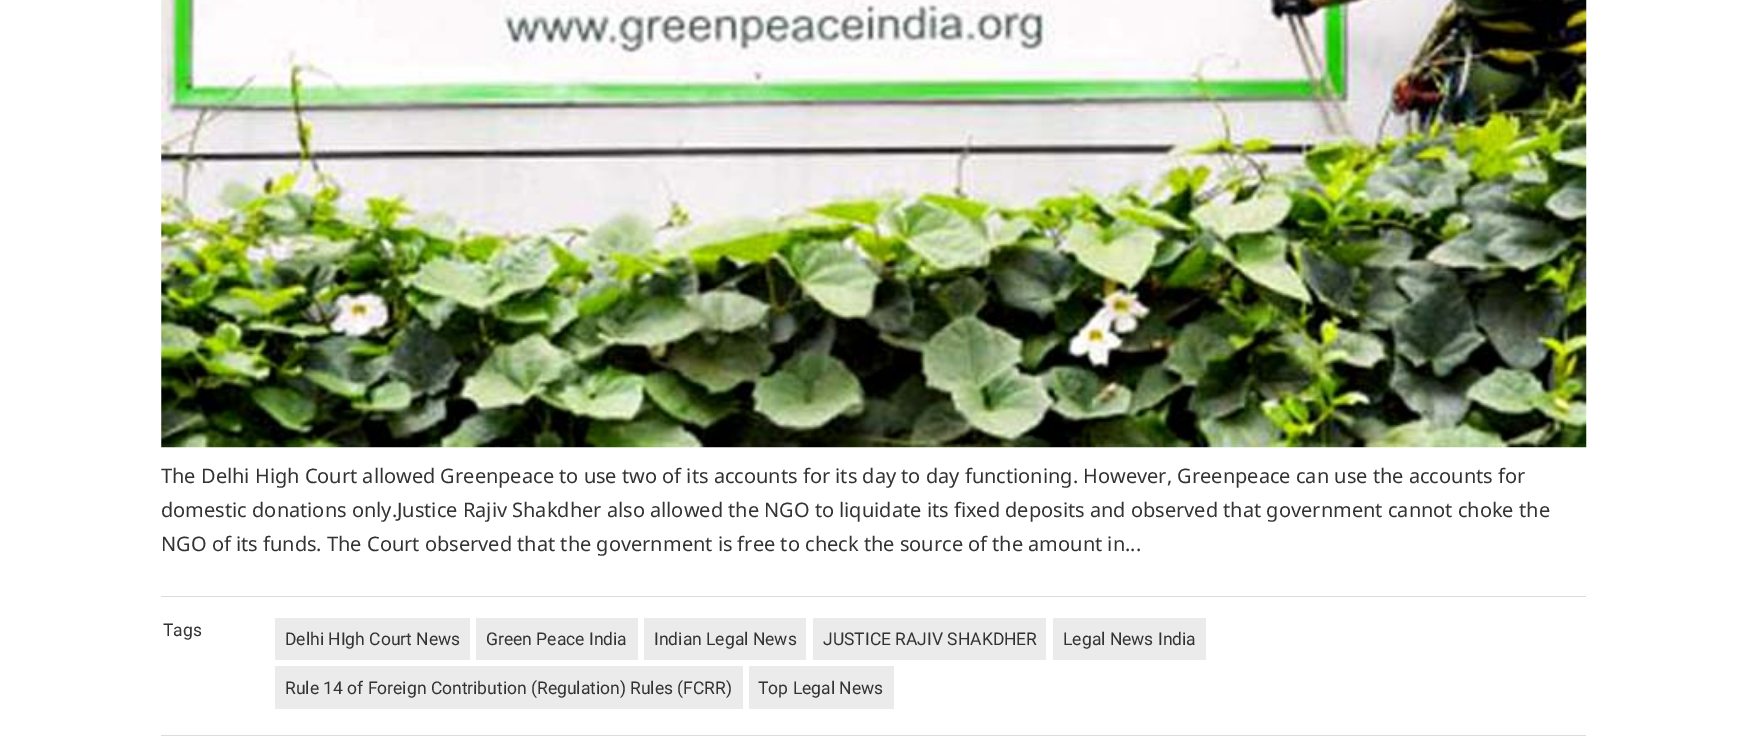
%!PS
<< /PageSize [1747 754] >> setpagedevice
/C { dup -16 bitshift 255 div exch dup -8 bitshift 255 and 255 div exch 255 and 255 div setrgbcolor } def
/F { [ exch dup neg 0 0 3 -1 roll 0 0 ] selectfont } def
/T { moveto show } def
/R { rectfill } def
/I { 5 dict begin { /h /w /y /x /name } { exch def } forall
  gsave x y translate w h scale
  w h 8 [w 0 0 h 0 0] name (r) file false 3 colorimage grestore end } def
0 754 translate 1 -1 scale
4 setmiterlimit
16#FFFFFF C
0 0 1747 754 R
(1.rgb) 161 0 1426 448 I
/NotoSans-Regular 20 F
16#333333 C
(The Delhi High Court allowed Greenpeace to use two of its accounts for its day to day functioning. However, Greenpeace can use the accounts for) 161 483 T
(domestic donations only.Justice Rajiv Shakdher also allowed the NGO to liquidate its fixed deposits and observed that government cannot choke the) 161 517 T
(NGO of its funds. The Court observed that the government is free to check the source of the amount in...) 161 551 T
16#DCDCDC C
161 596 1425 1 R
161 735 1425 1 R
/Roboto-Regular 17.5 F
16#333333 C
(Tags) 163 636 T
16#EBEBEB C
275 618 195 42 R
16#333333 C
(Delhi HIgh Court News) 285 645 T
16#EBEBEB C
476 618 162 42 R
16#333333 C
(Green Peace India) 486 645 T
16#EBEBEB C
644 618 162 42 R
16#333333 C
(Indian Legal News) 654 645 T
16#EBEBEB C
813 618 233 42 R
16#333333 C
(JUSTICE RAJIV SHAKDHER) 823 645 T
16#EBEBEB C
1053 618 153 42 R
16#333333 C
(Legal News India) 1063 645 T
16#EBEBEB C
275 666 468 43 R
16#333333 C
(Rule 14 of Foreign Contribution \(Regulation\) Rules \(FCRR\)) 285 694 T
16#EBEBEB C
749 666 145 43 R
16#333333 C
(Top Legal News) 758 694 T
showpage
